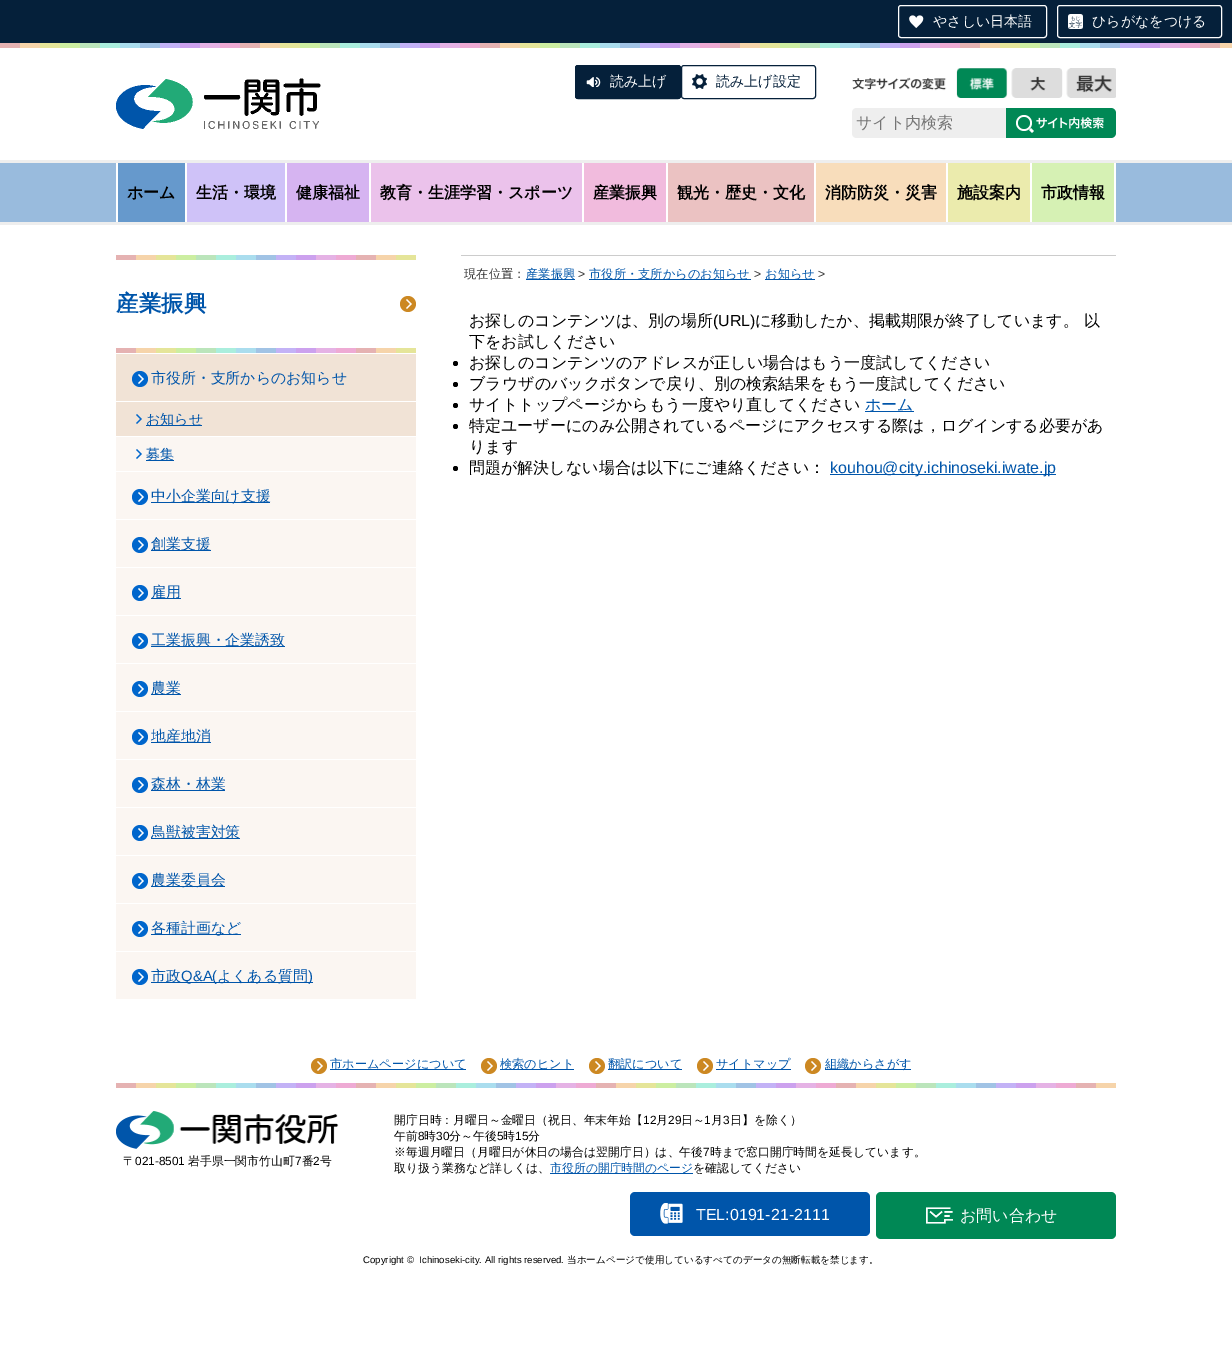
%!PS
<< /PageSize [1232 1360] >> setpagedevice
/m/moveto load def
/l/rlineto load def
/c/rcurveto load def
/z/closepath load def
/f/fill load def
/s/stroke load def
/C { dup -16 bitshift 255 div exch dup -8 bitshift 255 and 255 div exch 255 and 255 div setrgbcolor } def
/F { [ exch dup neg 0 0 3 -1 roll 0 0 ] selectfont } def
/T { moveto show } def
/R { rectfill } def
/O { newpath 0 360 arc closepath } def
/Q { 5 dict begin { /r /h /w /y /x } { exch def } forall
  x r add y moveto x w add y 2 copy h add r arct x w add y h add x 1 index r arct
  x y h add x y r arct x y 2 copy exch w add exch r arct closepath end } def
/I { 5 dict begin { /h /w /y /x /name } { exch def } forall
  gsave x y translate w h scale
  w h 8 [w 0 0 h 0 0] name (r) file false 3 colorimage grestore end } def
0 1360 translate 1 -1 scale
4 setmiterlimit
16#FFFFFF C
0 0 1232 1360 R
16#05203A C
0 0 1232 43 R
(1.rgb) 909 15 15 13 I
16#FFFFFF C
898.5 5.5 148 32 2.5 Q s
/WenQuanYiZenHei-Medium 14 F
(やさしい日本語) 933 26 T
(2.rgb) 1068 14 15 15 I
1057.5 5.5 164 32 2.5 Q s
(ひらがなをつける) 1092 26 T
(3.rgb) 0 43 1232 5 I
(4.rgb) 116 78 205 51 I
16#05203A C
575 65 106 34 3 Q f
(5.rgb) 586 77 15 10 I
575.5 65.5 105 33 2.5 Q s
16#FFFFFF C
(読み上げ) 610 86 T
(6.rgb) 692 74 15 15 I
16#05203A C
681.5 65.5 134 33 2.5 Q s
(読み上げ設定) 716 86 T
(7.rgb) 852 68 264 30 I
(8.rgb) 957 68 50 30 I
(9.rgb) 1029 68 33 30 I
(10.rgb) 1070 68 46 30 I
16#EEEEEE C
857 108 m 150 0 l 0 30 l -150 0 l -3 0 -5 -2 -5 -5 c 0 -20 l 0 -3 2 -5 5 -5 c z f
/WenQuanYiZenHei-Medium 16 F
16#757575 C
(サイト内検索) 856 128 T
(11.rgb) 1006 108 110 30 I
16#99BBDD C
0 163 1232 59 R
16#EEEEEE C
0 160 1232 3 R
0 222 1232 3 R
16#6699CC C
118 163 67 59 R
16#FFFFFF C
116 163 2 59 R
/WenQuanYiZenHei-Bold 16 F
16#000000 C
(ホーム) 127 198 T
16#CFC2F8 C
187 163 98 59 R
16#FFFFFF C
185 163 2 59 R
16#000000 C
(生活・環境) 196 198 T
16#D6B4F1 C
287 163 82 59 R
16#FFFFFF C
285 163 2 59 R
16#000000 C
(健康福祉) 296 198 T
16#EBC2EB C
371 163 211 59 R
16#FFFFFF C
369 163 2 59 R
16#000000 C
(教育・生涯学習・スポーツ) 380 198 T
16#F1BBDD C
584 163 82 59 R
16#FFFFFF C
582 163 2 59 R
16#000000 C
(産業振興) 593 198 T
16#EBC2C2 C
668 163 146 59 R
16#FFFFFF C
666 163 2 59 R
16#000000 C
(観光・歴史・文化) 677 198 T
16#F8DDBB C
816 163 130 59 R
16#FFFFFF C
814 163 2 59 R
16#000000 C
(消防防災・災害) 825 198 T
16#EBEBAD C
948 163 82 59 R
16#FFFFFF C
946 163 2 59 R
16#000000 C
(施設案内) 957 198 T
16#D6F1B4 C
1032 163 82 59 R
16#FFFFFF C
1114 163 2 59 R
1030 163 2 59 R
16#000000 C
(市政情報) 1041 198 T
(12.rgb) 116 255 300 98 I
(13.rgb) 400 296 16 16 I
/WenQuanYiZenHei-Bold 22.5 F
16#0055AA C
(産業振興) 116 311 T
16#FBF6F2 C
116 437 300 562 R
16#F1E3D6 C
116 354 300 47 R
(14.rgb) 132 371 16 16 I
/WenQuanYiZenHei-Medium 14.9 F
16#0055AA C
(市役所・支所からのお知らせ) 151 383 T
16#F1E3D6 C
116 402 300 34 R
(15.rgb) 136 414 6 10 I
16#0055AA C
146 425 56 1 R
/WenQuanYiZenHei-Medium 14 F
(お知らせ) 146 424 T
(16.rgb) 136 449 6 10 I
146 460 28 1 R
(募集) 146 459 T
(17.rgb) 132 489 16 16 I
16#FFFFFF C
116 471 300 1 R
16#0055AA C
151 502 119 1 R
/WenQuanYiZenHei-Medium 14.9 F
(中小企業向け支援) 151 501 T
(17.rgb) 132 537 16 16 I
16#FFFFFF C
116 519 300 1 R
16#0055AA C
151 550 60 1 R
(創業支援) 151 549 T
(17.rgb) 132 585 16 16 I
16#FFFFFF C
116 567 300 1 R
16#0055AA C
151 598 30 1 R
(雇用) 151 597 T
(17.rgb) 132 633 16 16 I
16#FFFFFF C
116 615 300 1 R
16#0055AA C
151 646 134 1 R
(工業振興・企業誘致) 151 645 T
(17.rgb) 132 681 16 16 I
16#FFFFFF C
116 663 300 1 R
16#0055AA C
151 694 30 1 R
(農業) 151 693 T
(17.rgb) 132 729 16 16 I
16#FFFFFF C
116 711 300 1 R
16#0055AA C
151 742 60 1 R
(地産地消) 151 741 T
(17.rgb) 132 777 16 16 I
16#FFFFFF C
116 759 300 1 R
16#0055AA C
151 790 74 1 R
(森林・林業) 151 789 T
(17.rgb) 132 825 16 16 I
16#FFFFFF C
116 807 300 1 R
16#0055AA C
151 838 89 1 R
(鳥獣被害対策) 151 837 T
(17.rgb) 132 873 16 16 I
16#FFFFFF C
116 855 300 1 R
16#0055AA C
151 886 74 1 R
(農業委員会) 151 885 T
(17.rgb) 132 921 16 16 I
16#FFFFFF C
116 903 300 1 R
16#0055AA C
151 934 90 1 R
(各種計画など) 151 933 T
(17.rgb) 132 969 16 16 I
16#FFFFFF C
116 951 300 1 R
16#0055AA C
151 982 162 1 R
(市政) 151 981 T
/LiberationSans-Regular 14.9 F
(Q&A\() 181 981 T
/WenQuanYiZenHei-Medium 14.9 F
(よくある質問) 217 981 T
/LiberationSans-Regular 14.9 F
(\)) 308 981 T
16#CCCCCC C
461 255 655 1 R
/WenQuanYiZenHei-Medium 12.25 F
16#333333 C
(現在位置：) 464 278 T
16#0055AA C
526 279 49 1 R
(産業振興) 526 278 T
/LiberationSans-Regular 12.25 F
16#333333 C
(>) 578 278 T
16#0055AA C
589 279 162 1 R
/WenQuanYiZenHei-Medium 12.25 F
(市役所・支所からのお知らせ) 589 278 T
/LiberationSans-Regular 12.25 F
16#333333 C
(>) 754 278 T
16#0055AA C
765 279 50 1 R
/WenQuanYiZenHei-Medium 12.25 F
(お知らせ) 765 278 T
/LiberationSans-Regular 12.25 F
16#333333 C
(>) 818 278 T
/WenQuanYiZenHei-Medium 16 F
16#000000 C
(お探しのコンテンツは、別の場所) 469 326 T
/LiberationSans-Regular 16 F
(\(URL\)) 713 326 T
/WenQuanYiZenHei-Medium 16 F
(に移動したか、掲載期限が終了しています。 以) 755 326 T
(下をお試しください) 469 347 T
455.5 363.5 2.5 O f
(お探しのコンテンツのアドレスが正しい場合はもう一度試してください) 469 368 T
455.5 384.5 2.5 O f
(ブラウザのバックボタンで戻り、別の検索結果をもう一度試してください) 469 389 T
455.5 405.5 2.5 O f
(サイトトップページからもう一度やり直してください) 469 410 T
16#0055AA C
865 411 49 1 R
(ホーム) 865 410 T
16#000000 C
455.5 426.5 2.5 O f
(特定ユーザーにのみ公開されているページにアクセスする際は，ログインする必要があ) 469 431 T
(ります) 469 452 T
455.5 468.5 2.5 O f
(問題が解決しない場合は以下にご連絡ください：) 469 473 T
16#0055AA C
830 474 226 1 R
/LiberationSans-Regular 16 F
(kouhou@city.ichinoseki.iwate.jp) 830 473 T
(13.rgb) 311 1058 16 16 I
330 1069 136 1 R
/WenQuanYiZenHei-Medium 12.2 F
(市ホームページについて) 330 1068 T
(13.rgb) 481 1058 16 16 I
500 1069 74 1 R
(検索のヒント) 500 1068 T
(13.rgb) 589 1058 16 16 I
608 1069 74 1 R
(翻訳について) 608 1068 T
(13.rgb) 697 1058 16 16 I
716 1069 75 1 R
(サイトマップ) 716 1068 T
(13.rgb) 805 1058 16 16 I
825 1069 86 1 R
(組織からさがす) 825 1068 T
(18.rgb) 116 1083 1000 5 I
(19.rgb) 116 1111 223 38 I
/WenQuanYiZenHei-Medium 11.85 F
16#000000 C
(〒) 123 1165 T
/LiberationSans-Regular 11.85 F
(021-8501) 135 1165 T
/WenQuanYiZenHei-Medium 11.85 F
(岩手県一関市竹山町) 188 1165 T
/LiberationSans-Regular 11.85 F
(7) 295 1165 T
/WenQuanYiZenHei-Medium 11.85 F
(番) 302 1165 T
/LiberationSans-Regular 11.85 F
(2) 313 1165 T
/WenQuanYiZenHei-Medium 11.85 F
(号) 320 1165 T
(開庁日時：月曜日～金曜日（祝日、年末年始【) 394 1124 T
/LiberationSans-Regular 11.85 F
(12) 643 1124 T
/WenQuanYiZenHei-Medium 11.85 F
(月) 656 1124 T
/LiberationSans-Regular 11.85 F
(29) 668 1124 T
/WenQuanYiZenHei-Medium 11.85 F
(日～) 681 1124 T
/LiberationSans-Regular 11.85 F
(1) 704 1124 T
/WenQuanYiZenHei-Medium 11.85 F
(月) 711 1124 T
/LiberationSans-Regular 11.85 F
(3) 723 1124 T
/WenQuanYiZenHei-Medium 11.85 F
(日】を除く）) 730 1124 T
(午前) 394 1140 T
/LiberationSans-Regular 11.85 F
(8) 418 1140 T
/WenQuanYiZenHei-Medium 11.85 F
(時) 424 1140 T
/LiberationSans-Regular 11.85 F
(30) 436 1140 T
/WenQuanYiZenHei-Medium 11.85 F
(分～午後) 449 1140 T
/LiberationSans-Regular 11.85 F
(5) 497 1140 T
/WenQuanYiZenHei-Medium 11.85 F
(時) 503 1140 T
/LiberationSans-Regular 11.85 F
(15) 515 1140 T
/WenQuanYiZenHei-Medium 11.85 F
(分) 528 1140 T
(※毎週月曜日（月曜日が休日の場合は翌開庁日）は、午後) 394 1156 T
/LiberationSans-Regular 11.85 F
(7) 703 1156 T
/WenQuanYiZenHei-Medium 11.85 F
(時まで窓口開庁時間を延長しています。) 710 1156 T
(取り扱う業務など詳しくは、) 394 1172 T
16#0055AA C
550 1173 143 1 R
(市役所の開庁時間のページ) 550 1172 T
16#000000 C
(を確認してください) 693 1172 T
16#0055AA C
630 1192 240 44 5 Q f
(20.rgb) 660 1203 23 21 I
/LiberationSans-Regular 16 F
16#FFFFFF C
(TEL:0191-21-2111) 696 1220 T
16#008855 C
876 1192 240 47 5 Q f
(21.rgb) 926 1207 27 17 I
/WenQuanYiZenHei-Medium 16 F
16#FFFFFF C
(お問い合わせ) 960 1221 T
/LiberationSans-Regular 9.6 F
16#000000 C
(Copyright ©  Ichinoseki-city. All rights reserved.) 363 1263 T
/WenQuanYiZenHei-Medium 9.6 F
(当ホームページで使用しているすべてのデータの無断転載を禁じます。) 567 1263 T
showpage
